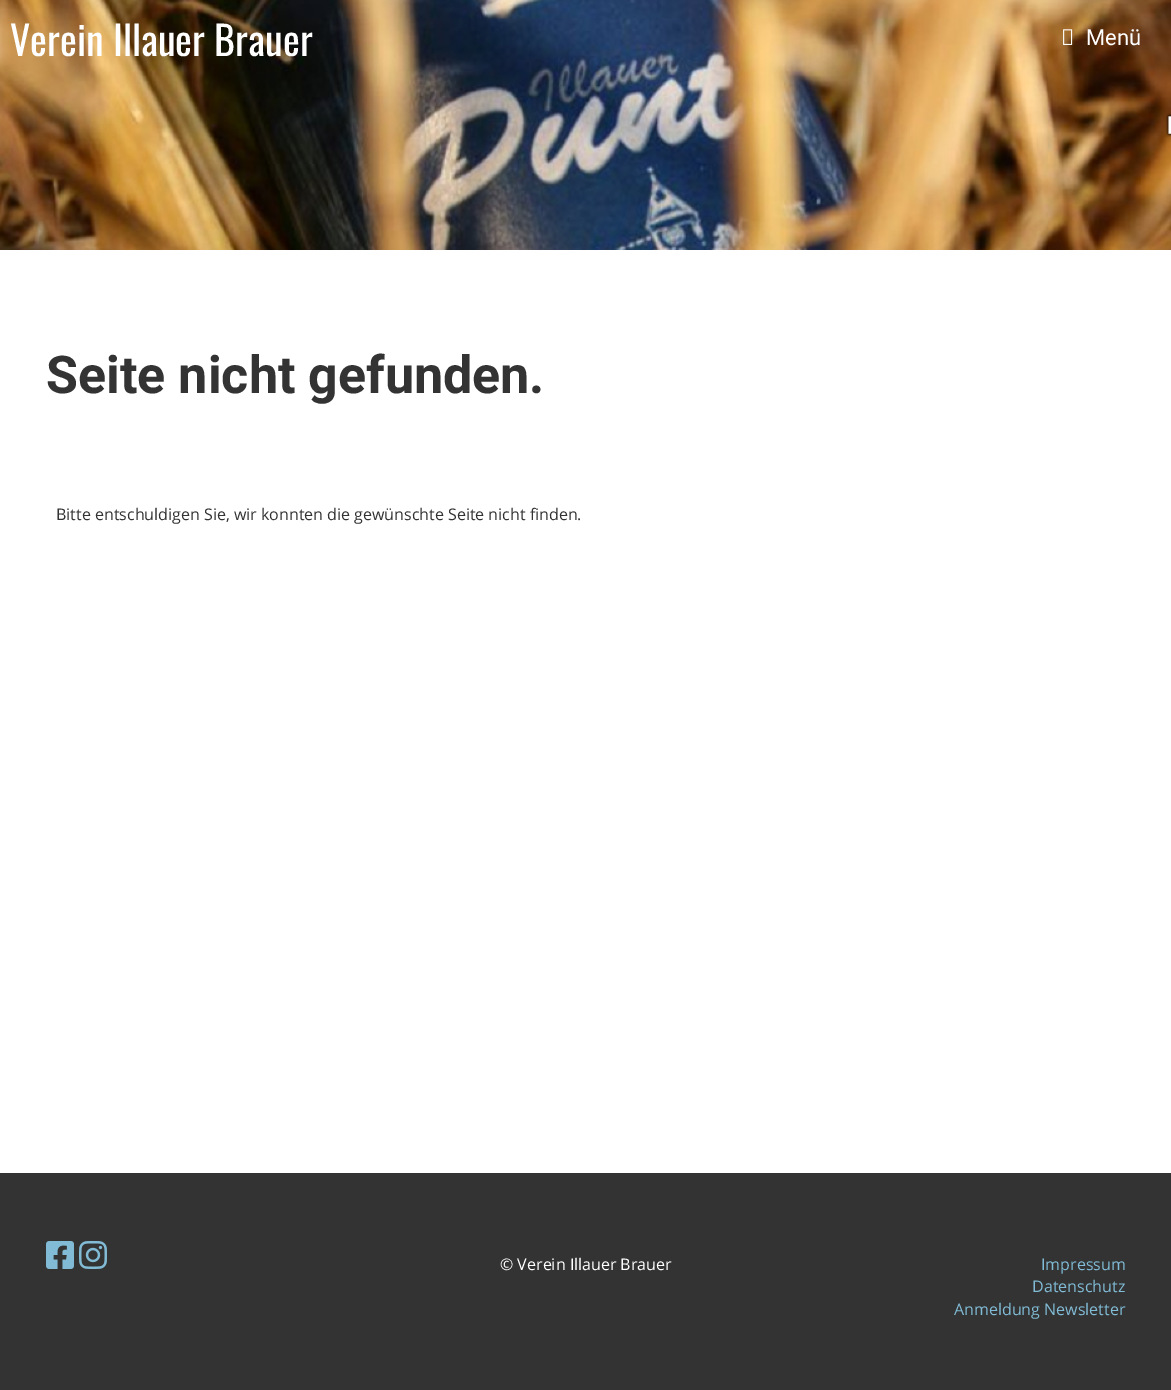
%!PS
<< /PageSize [1171 1390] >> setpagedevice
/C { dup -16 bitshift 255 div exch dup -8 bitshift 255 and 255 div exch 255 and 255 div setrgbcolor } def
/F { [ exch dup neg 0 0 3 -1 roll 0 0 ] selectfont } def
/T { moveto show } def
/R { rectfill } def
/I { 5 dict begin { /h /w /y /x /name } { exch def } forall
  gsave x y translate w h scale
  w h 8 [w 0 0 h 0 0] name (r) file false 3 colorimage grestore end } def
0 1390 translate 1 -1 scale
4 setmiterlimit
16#FFFFFF C
0 0 1171 1390 R
(2.rgb) 0 0 1171 250 I
/Oswald-Regular 40 F
(Verein Illauer Brauer) 10 56 T
(1.rgb) 1063 29 10 16 I
/Roboto-Regular 22 F
(Menü) 1086 45 T
/Roboto-Bold 52 F
16#333333 C
(Seite nicht gefunden.) 46 393 T
/OpenSans-Regular 16 F
(Bitte entschuldigen Sie, wir konnten die gewünschte Seite nicht finden.) 56 520 T
0 1173 1171 217 R
(3.rgb) 46 1241 28 28 I
(4.rgb) 79 1241 28 28 I
16#FFFFFF C
(© Verein Illauer Brauer) 500 1270 T
16#81BBD5 C
(Impressum) 1041 1270 T
(Datenschutz) 1032 1292 T
(Anmeldung Newsletter) 954 1315 T
showpage
